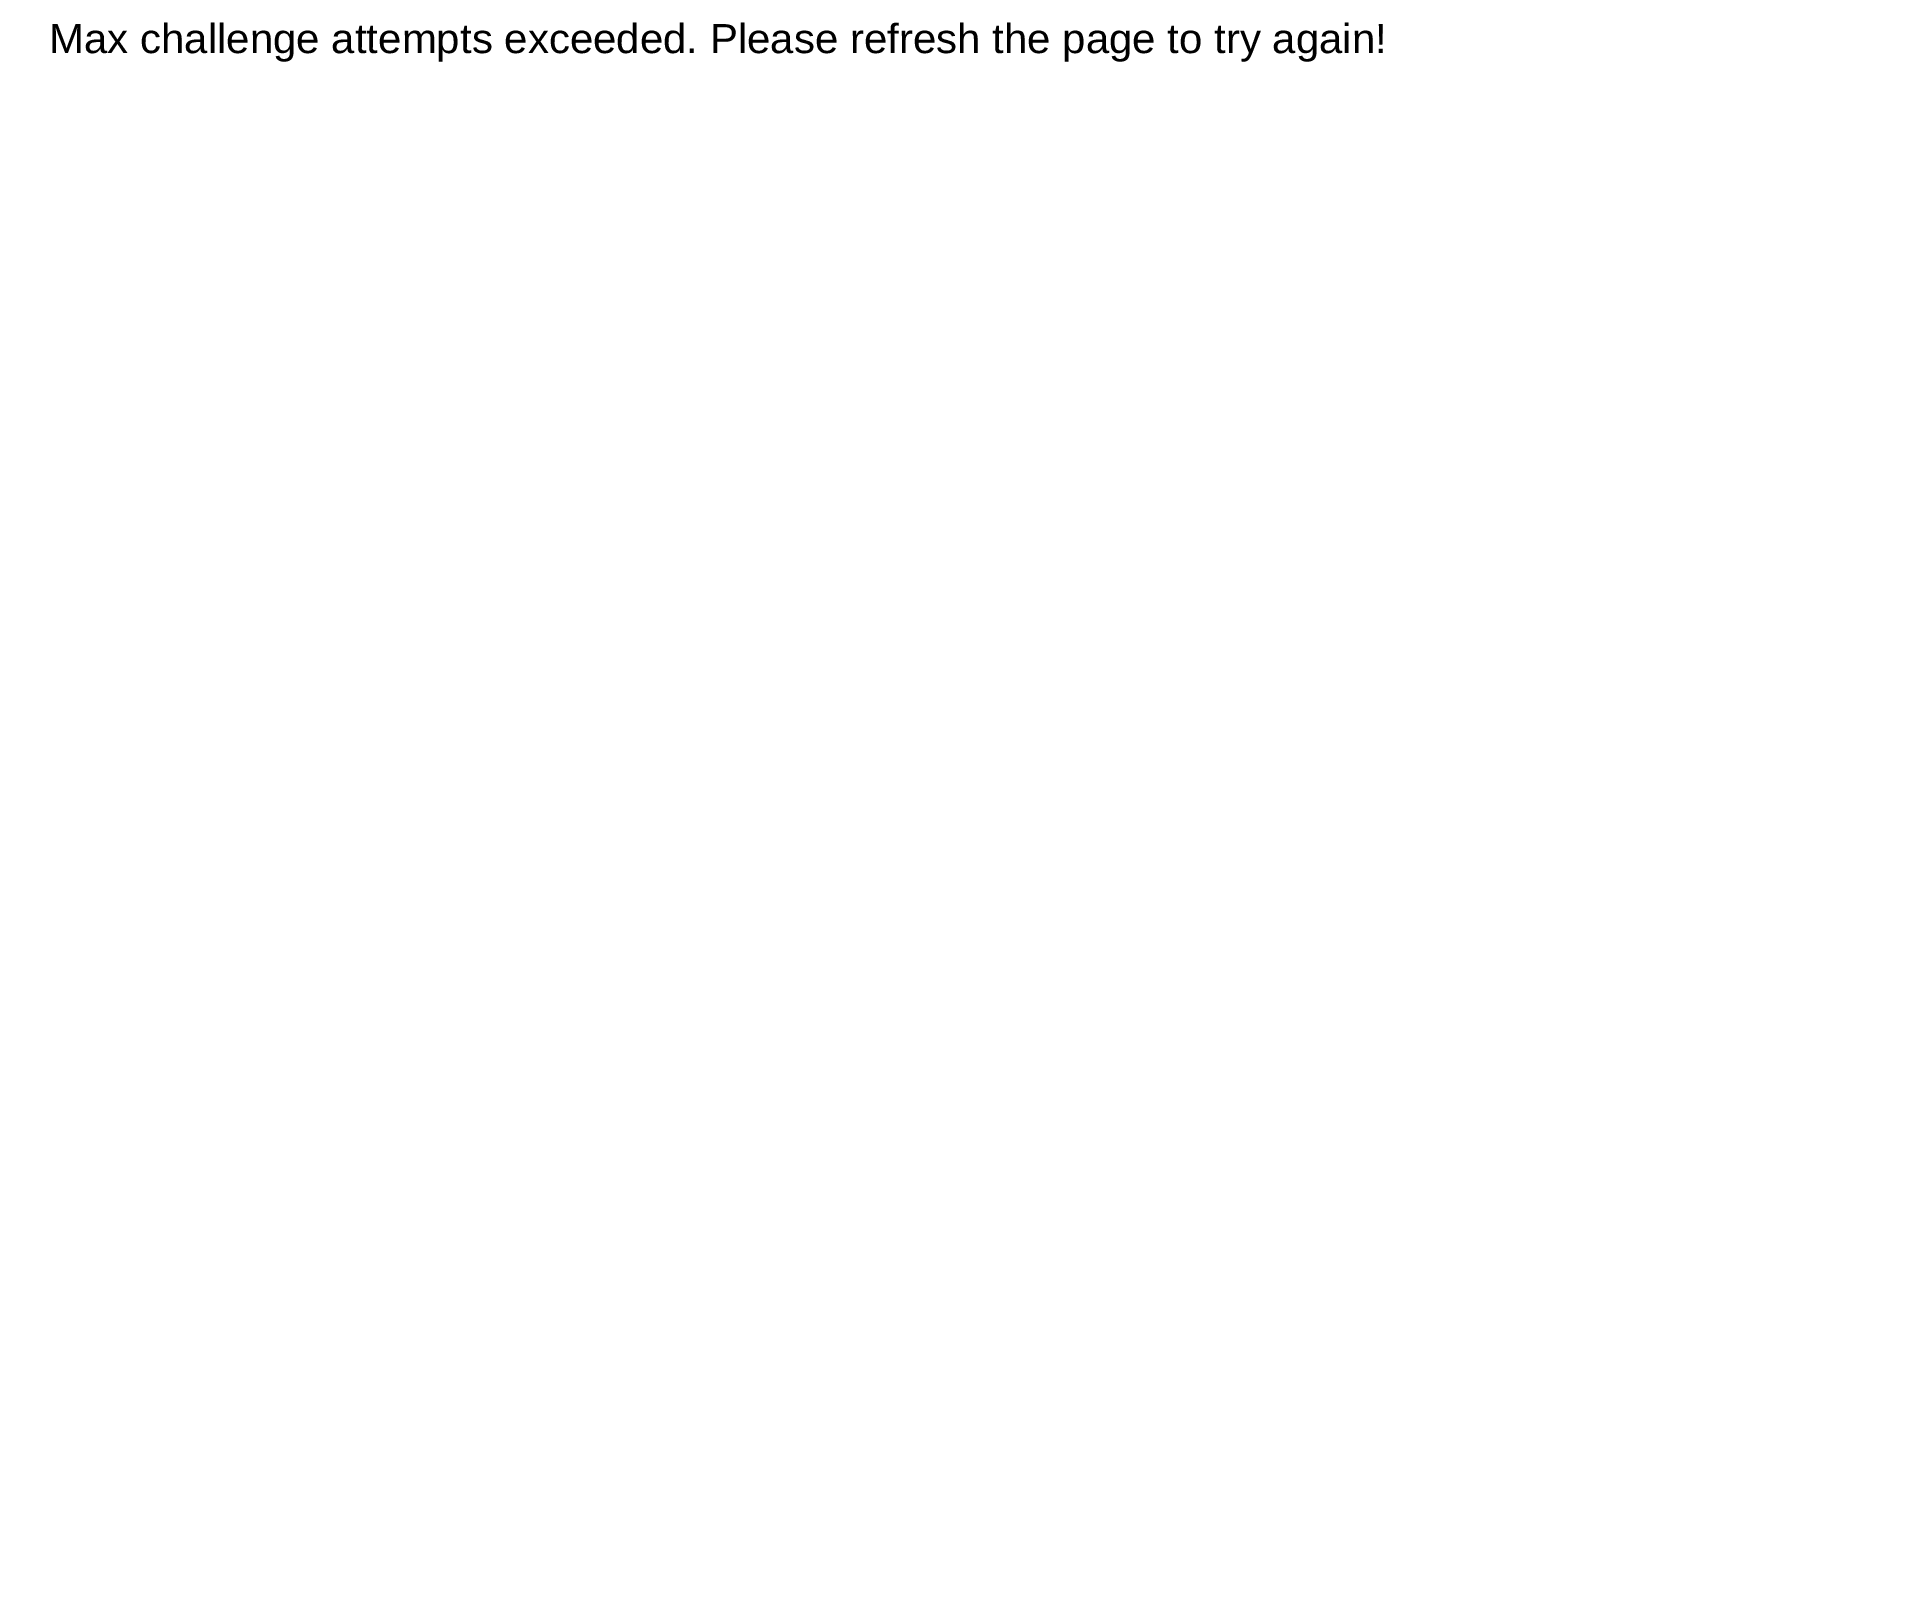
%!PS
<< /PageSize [1920 1597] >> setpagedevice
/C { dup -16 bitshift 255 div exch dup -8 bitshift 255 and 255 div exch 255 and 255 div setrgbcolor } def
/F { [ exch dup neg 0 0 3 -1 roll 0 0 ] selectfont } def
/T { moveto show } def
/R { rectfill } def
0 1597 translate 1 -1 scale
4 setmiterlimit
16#FFFFFF C
0 0 1920 1597 R
/LiberationSans-Regular 42 F
16#000000 C
(Max challenge attempts exceeded. Please refresh the page to try again!) 49 53 T
showpage
